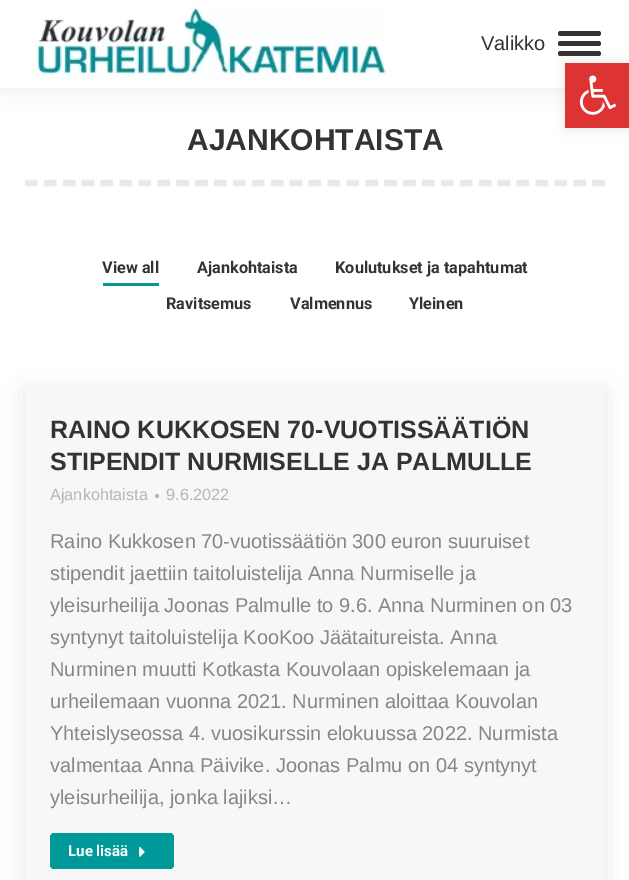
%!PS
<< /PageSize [629 880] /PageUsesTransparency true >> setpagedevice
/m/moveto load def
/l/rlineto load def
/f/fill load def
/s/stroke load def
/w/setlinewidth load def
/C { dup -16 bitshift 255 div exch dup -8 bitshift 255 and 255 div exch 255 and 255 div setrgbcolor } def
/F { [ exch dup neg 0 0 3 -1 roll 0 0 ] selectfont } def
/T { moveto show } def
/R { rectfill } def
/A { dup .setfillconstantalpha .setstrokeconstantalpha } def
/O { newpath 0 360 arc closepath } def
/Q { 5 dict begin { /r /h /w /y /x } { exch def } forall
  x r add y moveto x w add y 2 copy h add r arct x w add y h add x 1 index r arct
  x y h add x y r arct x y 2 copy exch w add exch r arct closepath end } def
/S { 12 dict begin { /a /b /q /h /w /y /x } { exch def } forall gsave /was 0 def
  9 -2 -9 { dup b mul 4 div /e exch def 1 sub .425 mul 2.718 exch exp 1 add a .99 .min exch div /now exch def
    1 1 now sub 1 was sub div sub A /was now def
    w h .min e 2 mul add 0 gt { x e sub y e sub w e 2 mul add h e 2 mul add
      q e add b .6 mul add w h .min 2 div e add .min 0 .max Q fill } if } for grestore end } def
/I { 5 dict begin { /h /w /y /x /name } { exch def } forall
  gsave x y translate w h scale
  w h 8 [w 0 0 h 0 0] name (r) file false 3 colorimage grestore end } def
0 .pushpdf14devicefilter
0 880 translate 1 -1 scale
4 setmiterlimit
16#FFFFFF C
0 0 629 880 R
16#000000 C
-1 -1 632 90 0 9.5 .07 S
16#FFFFFF C
0 0 629 88 R
(1.rgb) 34 5 353 76 I
/LiberationSans-Regular 20 F
16#333333 C
(Valikko) 481 50 T
558 31 43 5 2.5 Q f
558 41 43 5 2.5 Q f
558 51 43 5 2.5 Q f
/LiberationSans-Bold 30 F
(AJANKOHTAISTA) 187 150 T
16#E9E9E9 C
6.2 w
[12.5 6.41] 0 setdash
25 183 m 580 0 l s
/Roboto-Bold 16.25 F
16#333333 C
(View all) 102 273 T
16#009999 C
103 283 56 3 R
16#333333 C
(Ajankohtaista) 197 273 T
(Koulutukset ja tapahtumat) 335 273 T
(Ravitsemus) 166 309 T
(Valmennus) 290 309 T
(Yleinen) 409 309 T
16#000000 C
25 391 580 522 0 11 .1 S
16#F7F7F7 C
25 384 580 496 R
/LiberationSans-Bold 25 F
16#333333 C
(RAINO KUKKOSEN 70-VUOTISSÄÄTIÖN) 50 438 T
(STIPENDIT NURMISELLE JA PALMULLE) 50 470 T
/LiberationSans-Regular 16.25 F
16#B4B5BB C
(Ajankohtaista) 50 500 T
157 496 2 O f
(9.6.2022) 166 500 T
/LiberationSans-Regular 20 F
16#85868C C
(Raino Kukkosen 70-vuotissäätiön 300 euron suuruiset) 50 548 T
(stipendit jaettiin taitoluistelija Anna Nurmiselle ja) 50 580 T
(yleisurheilija Joonas Palmulle to 9.6. Anna Nurminen on 03) 50 612 T
(syntynyt taitoluistelija KooKoo Jäätaitureista. Anna) 50 644 T
(Nurminen muutti Kotkasta Kouvolaan opiskelemaan ja) 50 676 T
(urheilemaan vuonna 2021. Nurminen aloittaa Kouvolan) 50 708 T
(Yhteislyseossa 4. vuosikurssin elokuussa 2022. Nurmista) 50 740 T
(valmentaa Anna Päivike. Joonas Palmu on 04 syntynyt) 50 772 T
(yleisurheilija, jonka lajiksi…) 50 804 T
16#009999 C
50 833 124 36 4 Q f
/Roboto-Bold 15 F
16#FFFFFF C
(Lue lisää) 68 856 T
(2.rgb) 139 846 6 11 I
16#000000 C
565 63 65 65 0 6 .1 S
16#DD3333 C
565 63 64 65 R
(3.rgb) 579 75 38 40 I
.poppdf14devicefilter showpage
